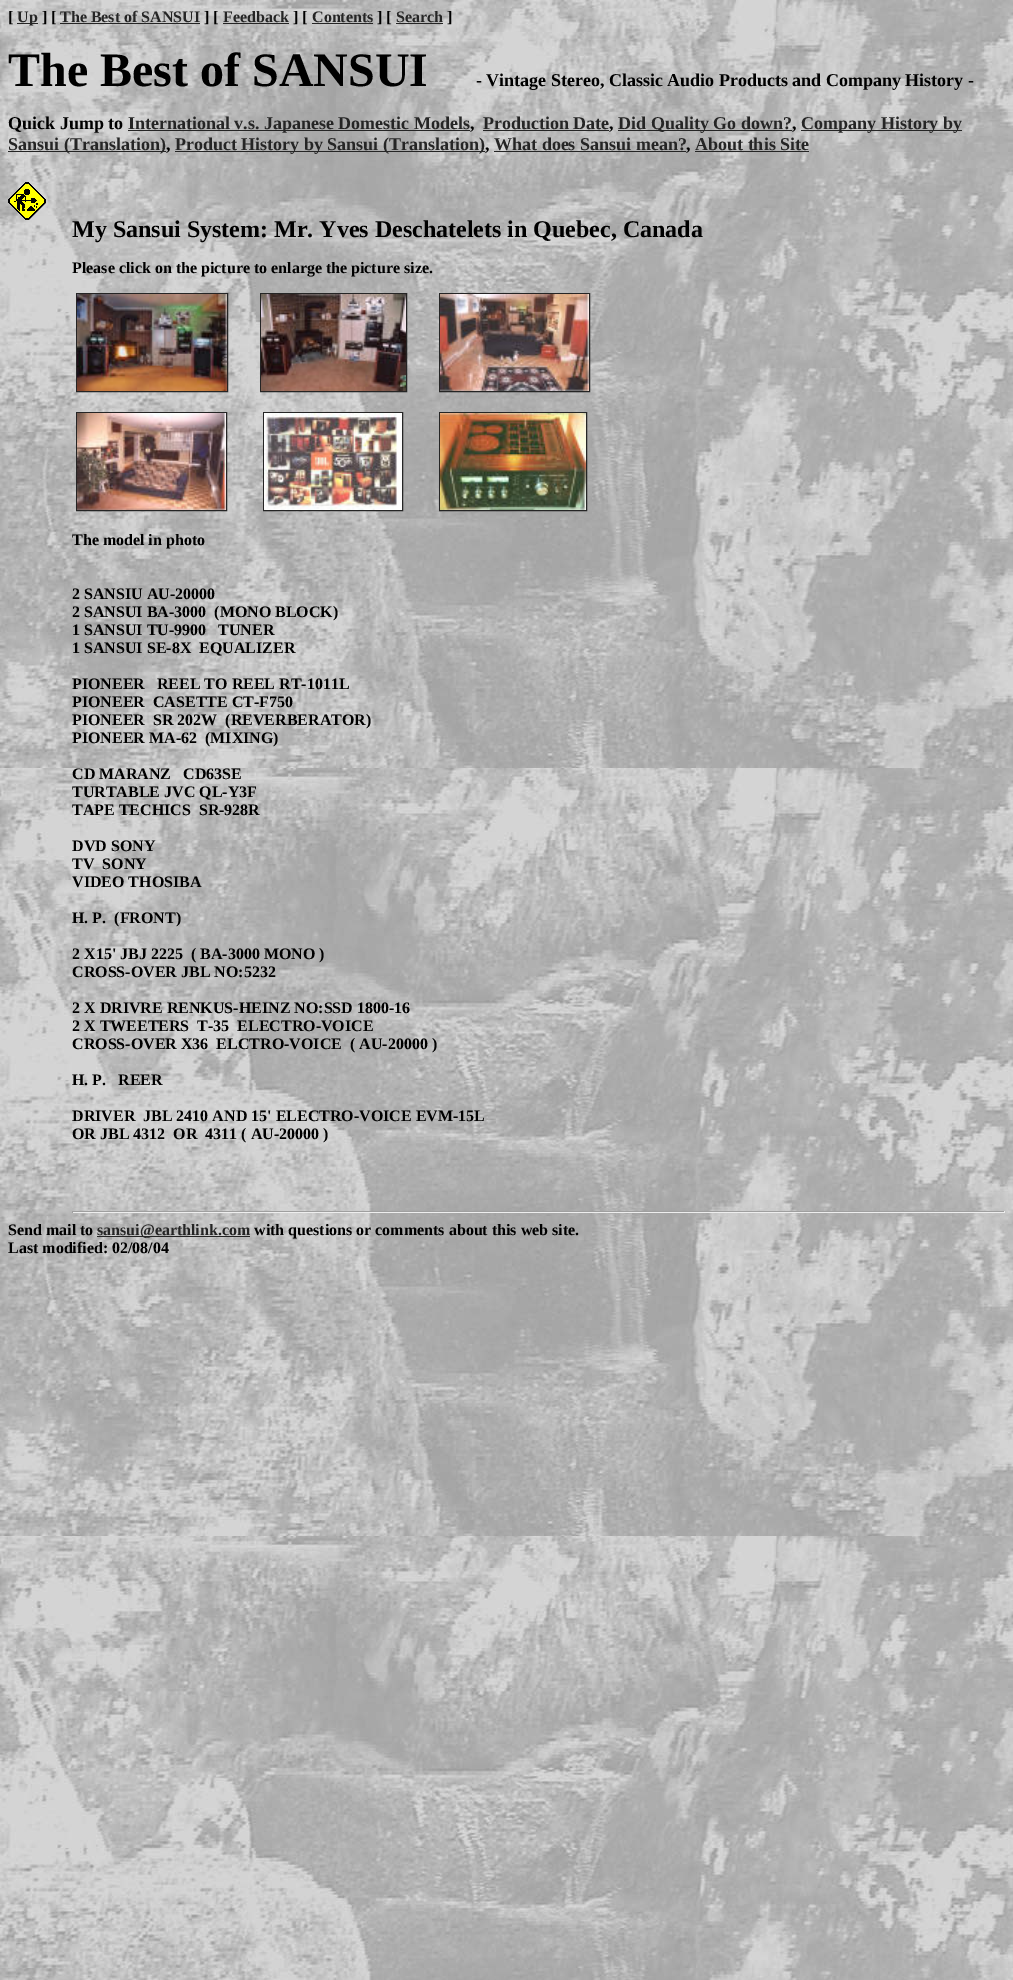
%!PS
<< /PageSize [1013 1980] >> setpagedevice
/C { dup -16 bitshift 255 div exch dup -8 bitshift 255 and 255 div exch 255 and 255 div setrgbcolor } def
/F { [ exch dup neg 0 0 3 -1 roll 0 0 ] selectfont } def
/T { moveto show } def
/R { rectfill } def
/I { 5 dict begin { /h /w /y /x /name } { exch def } forall
  gsave x y translate w h scale
  w h 8 [w 0 0 h 0 0] name (r) file false 3 colorimage grestore end } def
0 1980 translate 1 -1 scale
4 setmiterlimit
16#FFFFFF C
0 0 1013 1980 R
(1.rgb) 0 0 1013 1980 I
/LiberationSerif-Bold 16 F
16#000000 C
([) 8 22 T
16#252525 C
17 23 21 1 R
(Up) 17 22 T
16#000000 C
(] [) 42 22 T
16#252525 C
(The Best of SANSUI) 60 22 T
60 23 140 1 R
16#000000 C
(] [) 204 22 T
16#252525 C
(Feedback) 223 22 T
223 23 66 1 R
16#000000 C
(] [) 293 22 T
16#252525 C
(Contents) 312 22 T
312 23 61 1 R
16#000000 C
(] [) 377 22 T
16#252525 C
(Search) 396 22 T
396 23 47 1 R
16#000000 C
(]) 447 22 T
/LiberationSerif-Bold 48 F
(The Best of SANSUI) 8 86 T
/LiberationSerif-Bold 18 F
(- Vintage Stereo, Classic Audio Products and Company History -) 476 86 T
(Quick Jump to) 8 129 T
16#252525 C
128 130 342 1 R
(International v.s. Japanese Domestic Models) 128 129 T
16#000000 C
(,) 470 129 T
16#252525 C
483 130 126 1 R
(Production Date) 483 129 T
16#000000 C
(,) 609 129 T
16#252525 C
618 130 174 1 R
(Did Quality Go down?) 618 129 T
16#000000 C
(,) 792 129 T
16#252525 C
801 130 161 1 R
(Company History by) 801 129 T
8 151 158 1 R
(Sansui \(Translation\)) 8 150 T
16#000000 C
(,) 166 150 T
16#252525 C
175 151 310 1 R
(Product History by Sansui \(Translation\)) 175 150 T
16#000000 C
(,) 485 150 T
16#252525 C
(What does Sansui mean?) 494 150 T
16#000000 C
(,) 686 150 T
16#252525 C
494 151 192 1 R
695 151 114 1 R
(About this Site) 695 150 T
(2.rgb) 8 182 38 38 I
/LiberationSerif-Bold 24 F
16#000000 C
(My Sansui System: Mr. Yves Deschatelets in Quebec, Canada) 72 237 T
/LiberationSerif-Bold 16 F
(Please click on the picture to enlarge the picture size.) 72 273 T
16#252525 C
76.5 293.5 151 98 rectstroke
260.5 293.5 146 98 rectstroke
439.5 293.5 150 98 rectstroke
(3.rgb) 77 294 150 97 I
(4.rgb) 261 294 145 97 I
(5.rgb) 440 294 149 97 I
76.5 412.5 150 98 rectstroke
263.5 412.5 139 98 rectstroke
439.5 412.5 147 98 rectstroke
(6.rgb) 77 413 149 97 I
(7.rgb) 264 413 138 97 I
(8.rgb) 440 413 146 97 I
16#000000 C
(The model in photo) 72 545 T
(2 SANSIU AU-20000) 72 599 T
(2 SANSUI BA-3000  \(MONO BLOCK\)) 72 617 T
(1 SANSUI TU-9900   TUNER) 72 635 T
(1 SANSUI SE-8X  EQUALIZER) 72 653 T
(PIONEER   REEL TO REEL RT-1011L) 72 689 T
(PIONEER  CASETTE CT-F750) 72 707 T
(PIONEER  SR 202W  \(REVERBERATOR\)) 72 725 T
(PIONEER MA-62  \(MIXING\)) 72 743 T
(CD MARANZ   CD63SE) 72 779 T
(TURTABLE JVC QL-Y3F) 72 797 T
(TAPE TECHICS  SR-928R) 72 815 T
(DVD SONY) 72 851 T
(TV  SONY) 72 869 T
(VIDEO THOSIBA) 72 887 T
(H. P.  \(FRONT\)) 72 923 T
(2 X15' JBJ 2225  \( BA-3000 MONO \)) 72 959 T
(CROSS-OVER JBL NO:5232) 72 977 T
(2 X DRIVRE RENKUS-HEINZ NO:SSD 1800-16) 72 1013 T
(2 X TWEETERS  T-35  ELECTRO-VOICE) 72 1031 T
(CROSS-OVER X36  ELCTRO-VOICE  \( AU-20000 \)) 72 1049 T
(H. P.   REER) 72 1085 T
(DRIVER  JBL 2410 AND 15' ELECTRO-VOICE EVM-15L) 72 1121 T
(OR JBL 4312  OR  4311 \( AU-20000 \)) 72 1139 T
16#9F9F9F C
72 1211 933 1 R
16#EEEEEE C
1004 1211 1 2 R
72 1212 933 1 R
16#9F9F9F C
72 1211 1 2 R
16#000000 C
(Send mail to) 8 1235 T
16#252525 C
97 1236 153 1 R
(sansui@earthlink.com) 97 1235 T
16#000000 C
(with questions or comments about this web site.) 254 1235 T
(Last modified: 02/08/04) 8 1253 T
showpage
